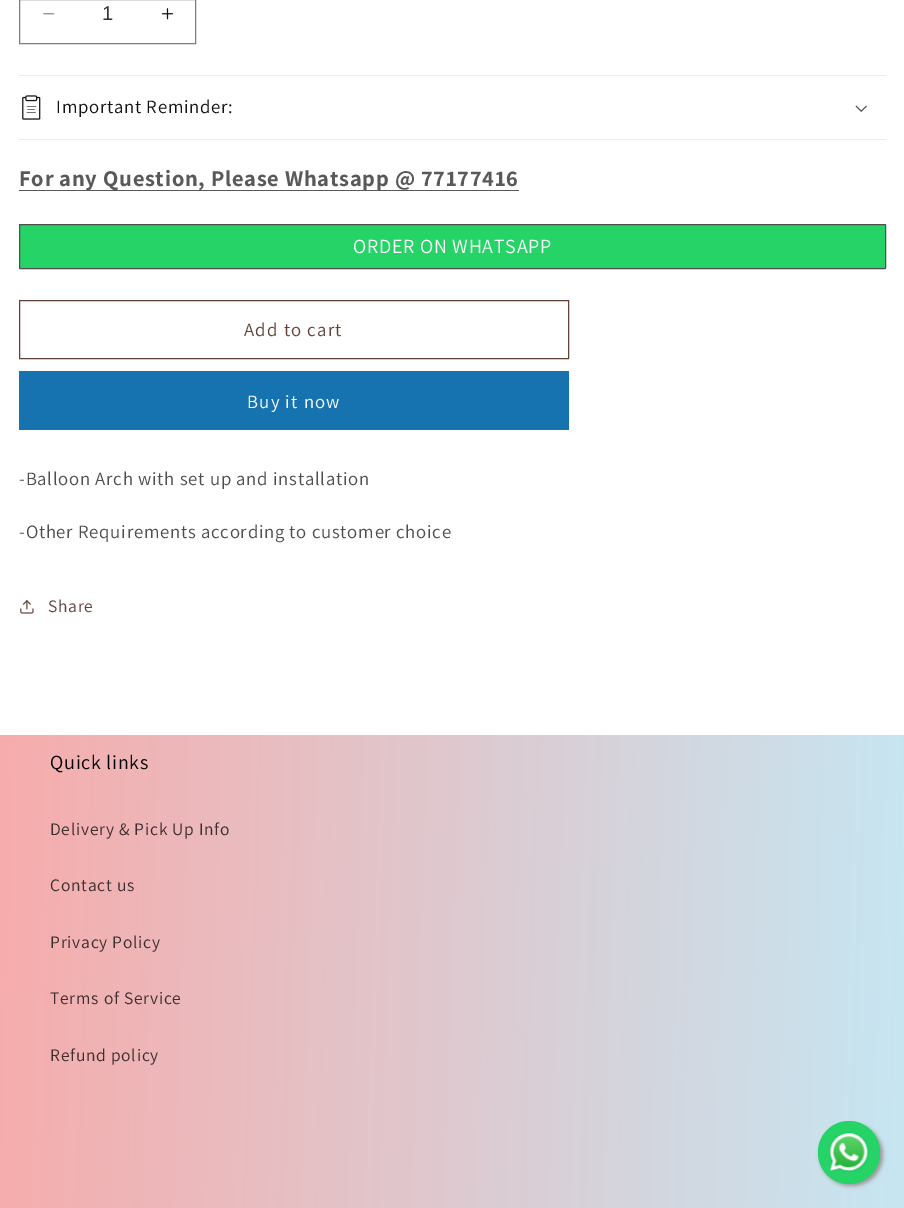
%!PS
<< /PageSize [904 1208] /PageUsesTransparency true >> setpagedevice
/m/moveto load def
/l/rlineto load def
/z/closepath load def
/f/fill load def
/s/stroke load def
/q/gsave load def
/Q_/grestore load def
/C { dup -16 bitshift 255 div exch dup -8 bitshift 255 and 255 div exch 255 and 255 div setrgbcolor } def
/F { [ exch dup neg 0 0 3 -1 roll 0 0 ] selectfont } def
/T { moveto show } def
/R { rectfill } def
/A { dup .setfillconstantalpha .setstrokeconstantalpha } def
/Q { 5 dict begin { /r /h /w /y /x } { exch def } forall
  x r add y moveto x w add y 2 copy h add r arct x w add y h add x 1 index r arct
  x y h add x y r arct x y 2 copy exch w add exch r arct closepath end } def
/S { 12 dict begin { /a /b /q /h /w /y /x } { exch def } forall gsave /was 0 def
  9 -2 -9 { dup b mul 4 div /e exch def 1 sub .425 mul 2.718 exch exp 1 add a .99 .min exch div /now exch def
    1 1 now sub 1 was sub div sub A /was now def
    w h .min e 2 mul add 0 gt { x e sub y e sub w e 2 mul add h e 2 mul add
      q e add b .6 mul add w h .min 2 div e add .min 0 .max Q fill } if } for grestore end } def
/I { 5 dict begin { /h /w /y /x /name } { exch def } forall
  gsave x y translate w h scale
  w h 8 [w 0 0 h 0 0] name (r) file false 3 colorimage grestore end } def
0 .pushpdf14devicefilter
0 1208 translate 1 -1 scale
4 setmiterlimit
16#FFFFFF C
0 0 904 1208 R
(1.rgb) 43 13 12 2 I
(2.rgb) 161 8 13 12 I
16#7D7D7D C
19.5 -.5 176 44 rectstroke
/LiberationSans-Regular 20 F
16#363636 C
(1) 102 20 T
16#ECECEC C
19 75 867 1 R
19 139 867 1 R
(3.rgb) 22 95 19 25 I
/Assistant-Regular 18.75 F
16#121212 C
56 113 m .75 0 (Important Reminder:) ashow
(4.rgb) 855 105 12 7 I
16#595959 C
19 190 500 1 R
/Assistant-Bold 22.5 F
19 186 m .75 0 (For any Question, Please Whatsapp @ 77177416) ashow
16#25D366 C
19.5 224.5 866 44 .5 Q q f Q_
16#4E4E4E C
s
/Assistant-Regular 20 F
16#FFFFFF C
353 253 m .75 0 (ORDER ON WHATSAPP) ashow
16#624136 C
19.5 300.5 549 58 rectstroke
/Assistant-Regular 18.75 F
244 336 m 1.25 0 (Add to cart) ashow
16#1773B0 C
19 371 550 59 R
16#FFFFFF C
247 408 m 1.25 0 (Buy it now) ashow
16#4D4D4D C
19 485 m .75 0 (-Balloon Arch with set up and installation) ashow
19 538 m .75 0 (-Other Requirements according to customer choice) ashow
(5.rgb) 20 600 14 14 I
/Assistant-Regular 17.5 F
16#624136 C
48 612 m .75 0 (Share) ashow
q 0 735 m 904 0 l 0 473 l -904 0 l z clip newpath
<< /ShadingType 2 /ColorSpace /DeviceRGB /Coords [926 621 -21 588] /Extend [true true] /Function << /FunctionType 2 /Domain [0 1] /C0 [.776 .902 .949] /C1 [.973 .667 .667] /N 1 >> >> shfill Q_
/Assistant-Regular 20 F
16#000000 C
50 769 m .75 0 (Quick links) ashow
/Assistant-Regular 17.5 F
16#3C2D2E C
50 835 m .75 0 (Delivery & Pick Up Info) ashow
50 891 m .75 0 (Contact us) ashow
50 948 m .75 0 (Privacy Policy) ashow
50 1004 m .75 0 (Terms of Service) ashow
50 1061 m .75 0 (Refund policy) ashow
16#999999 C
820 1124 63 62 31 2 1 S
16#25D366 C
818 1121 62 63 31 Q f
(6.rgb) 829 1132 40 40 I
.poppdf14devicefilter showpage
